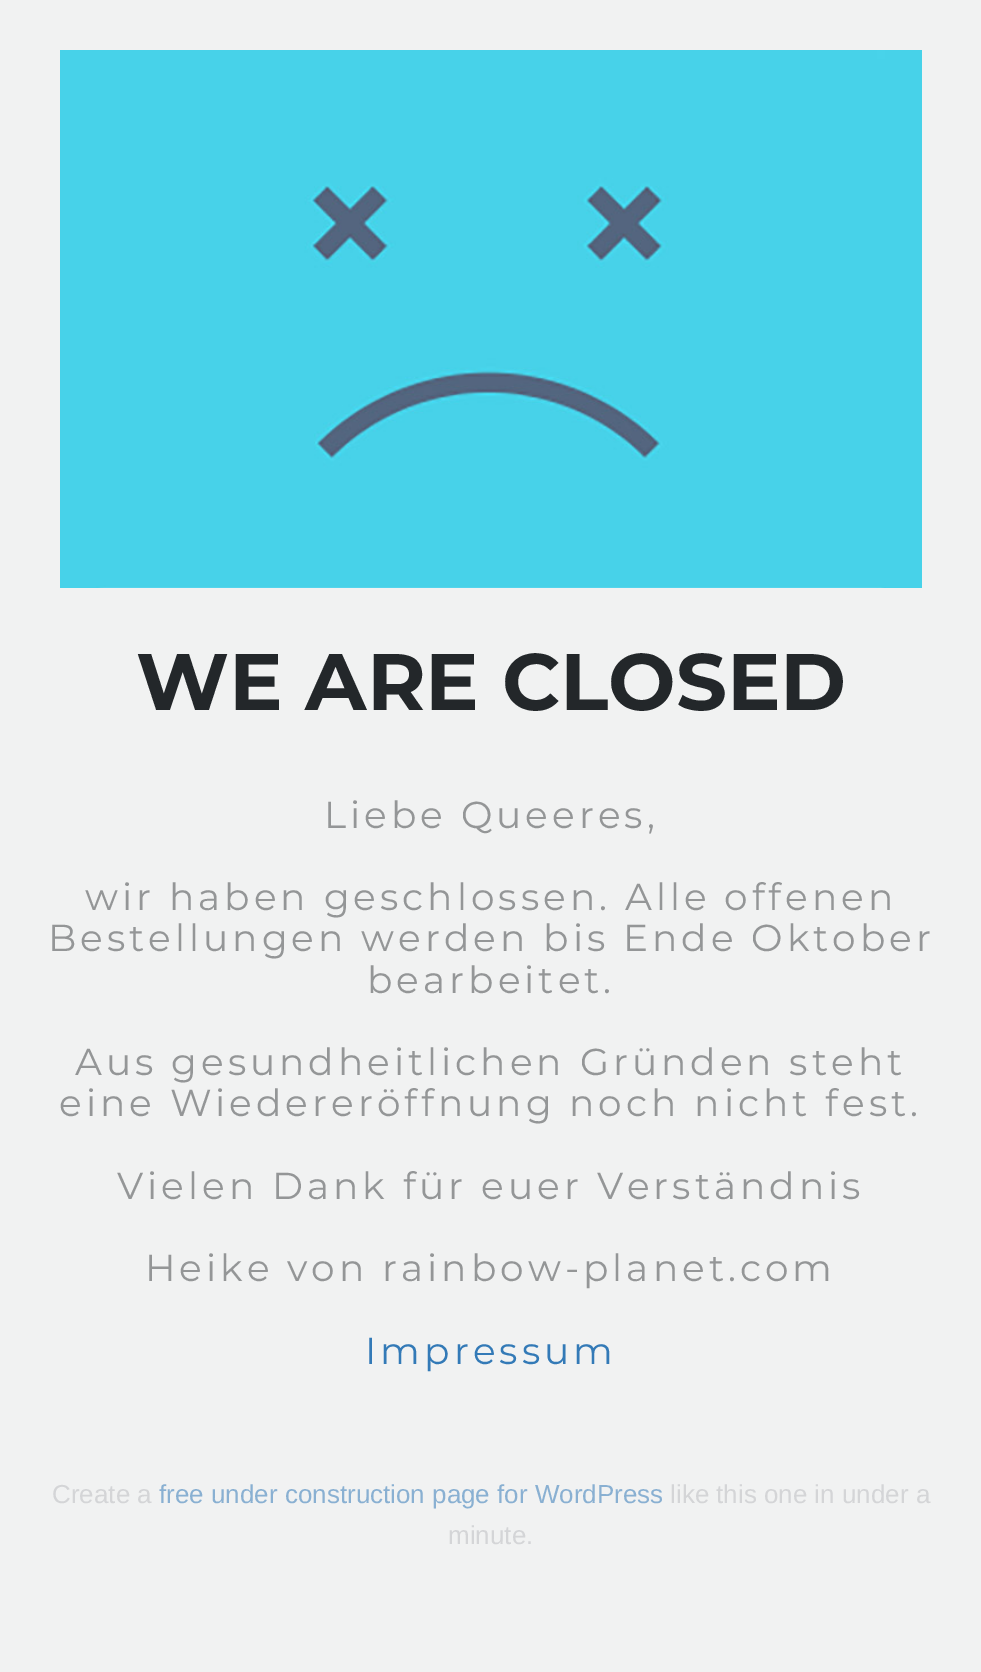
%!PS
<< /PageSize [981 1672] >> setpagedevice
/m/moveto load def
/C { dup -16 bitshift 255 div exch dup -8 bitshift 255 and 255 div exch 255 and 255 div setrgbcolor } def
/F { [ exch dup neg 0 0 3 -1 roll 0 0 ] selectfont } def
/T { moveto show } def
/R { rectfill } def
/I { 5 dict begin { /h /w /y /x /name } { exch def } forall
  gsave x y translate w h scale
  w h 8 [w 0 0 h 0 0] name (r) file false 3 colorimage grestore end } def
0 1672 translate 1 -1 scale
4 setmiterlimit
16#F1F2F2 C
0 0 981 1672 R
(1.rgb) 60 50 862 538 I
/Montserrat-Thin 80 F
16#23272A C
(WE ARE CLOSED) 136 710 T
/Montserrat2-Thin 37.5 F
16#949697 C
324 828 m 4 0 (Liebe Queeres,) ashow
85 910 m 4 0 (wir haben geschlossen. Alle offenen) ashow
48 951 m 4 0 (Bestellungen werden bis Ende Oktober) ashow
367 993 m 4 0 (bearbeitet.) ashow
75 1075 m 4 0 (Aus gesundheitlichen Gründen steht) ashow
59 1116 m 4 0 (eine Wiedereröffnung noch nicht fest.) ashow
117 1199 m 4 0 (Vielen Dank für euer Verständnis) ashow
145 1281 m 4 0 (Heike von rainbow-planet.com) ashow
16#337AB7 C
365 1364 m 4 0 (Impressum) ashow
/LiberationSans-Regular 26 F
16#D4D5D7 C
(Create a) 52 1503 T
16#89B0D2 C
(free under construction page for WordPress) 159 1503 T
16#D4D5D7 C
(like this one in under a) 670 1503 T
(minute.) 448 1544 T
showpage
